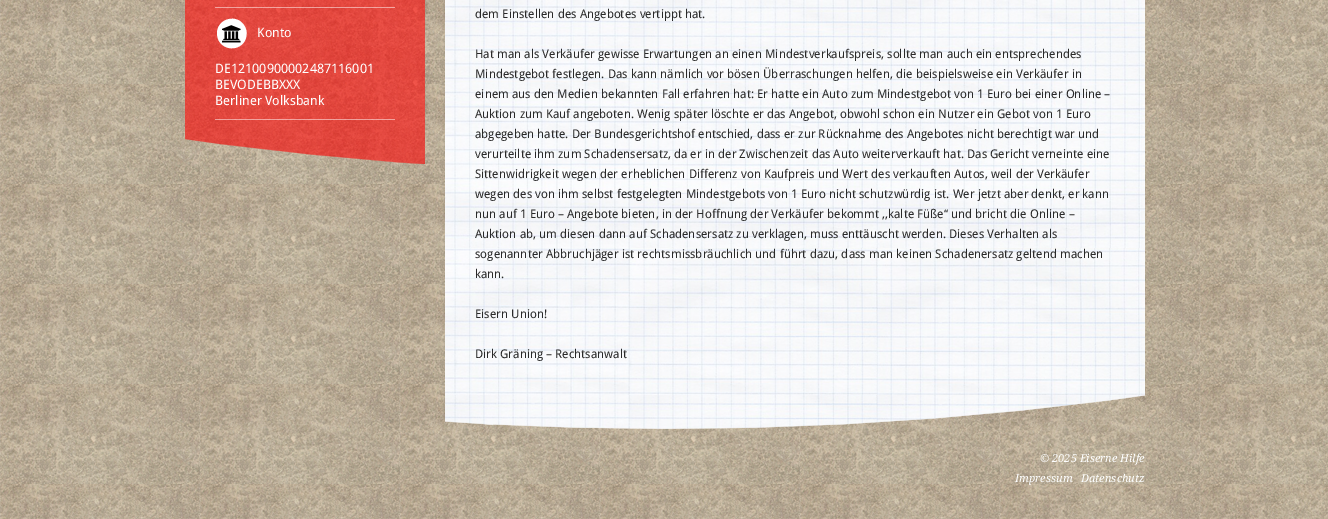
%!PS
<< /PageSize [1328 519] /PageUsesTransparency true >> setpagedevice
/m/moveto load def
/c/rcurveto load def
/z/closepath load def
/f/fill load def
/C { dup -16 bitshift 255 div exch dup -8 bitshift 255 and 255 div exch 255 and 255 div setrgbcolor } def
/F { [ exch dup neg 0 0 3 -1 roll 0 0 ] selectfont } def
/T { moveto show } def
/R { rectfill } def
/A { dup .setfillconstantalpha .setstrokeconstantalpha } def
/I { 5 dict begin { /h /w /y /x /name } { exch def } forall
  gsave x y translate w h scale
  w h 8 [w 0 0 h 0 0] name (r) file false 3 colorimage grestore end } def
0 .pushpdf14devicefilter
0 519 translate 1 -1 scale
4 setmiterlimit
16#FFFFFF C
0 0 1328 519 R
(1.rgb) 0 0 1328 519 I
(2.rgb) 185 0 240 139 I
0.5 A
215 7 180 1 R
1 A
16#FEFFFF C
244.5 26 m 1.5 2.5 2.5 5.5 2 8.5 c -.5 14.5 -20 19 -27.5 6.5 c -1.5 -2.5 -2 -5.5 -2 -8.5 c 1 -14.5 20.5 -19 27.5 -6.5 c z f
(3.rgb) 222 25 19 18 I
/DroidSans-Regular 13 F
(Konto) 257 37 T
(DE12100900002487116001) 215 73 T
(BEVODEBBXXX) 215 89 T
(Berliner Volksbank) 215 105 T
0.5 A
16#FFFFFF C
215 119 180 1 R
1 A
(4.rgb) 185 139 240 25 I
(5.rgb) 445 0 700 395 I
/DroidSans-Regular 12 F
16#292929 C
(dem Einstellen des Angebotes vertippt hat.) 475 18 T
(Hat man als Verkäufer gewisse Erwartungen an einen Mindestverkaufspreis, sollte man auch ein entsprechendes) 475 58 T
(Mindestgebot festlegen. Das kann nämlich vor bösen Überraschungen helfen, die beispielsweise ein Verkäufer in) 475 78 T
(einem aus den Medien bekannten Fall erfahren hat: Er hatte ein Auto zum Mindestgebot von 1 Euro bei einer Online –) 475 98 T
(Auktion zum Kauf angeboten. Wenig später löschte er das Angebot, obwohl schon ein Nutzer ein Gebot von 1 Euro) 475 118 T
(abgegeben hatte. Der Bundesgerichtshof entschied, dass er zur Rücknahme des Angebotes nicht berechtigt war und) 475 138 T
(verurteilte ihm zum Schadensersatz, da er in der Zwischenzeit das Auto weiterverkauft hat. Das Gericht verneinte eine) 475 158 T
(Sittenwidrigkeit wegen der erheblichen Differenz von Kaufpreis und Wert des verkauften Autos, weil der Verkäufer) 475 178 T
(wegen des von ihm selbst festgelegten Mindestgebots von 1 Euro nicht schutzwürdig ist. Wer jetzt aber denkt, er kann) 475 198 T
(nun auf 1 Euro – Angebote bieten, in der Hoffnung der Verkäufer bekommt ,,kalte Füße‘‘ und bricht die Online –) 475 218 T
(Auktion ab, um diesen dann auf Schadensersatz zu verklagen, muss enttäuscht werden. Dieses Verhalten als) 475 238 T
(sogenannter Abbruchjäger ist rechtsmissbräuchlich und führt dazu, dass man keinen Schadenersatz geltend machen) 475 258 T
(kann.) 475 278 T
(Eisern Union!) 475 318 T
(Dirk Gräning – Rechtsanwalt) 475 358 T
(6.rgb) 445 395 700 34 I
/DroidSerif-Italic 11 F
16#FEFFFF C
(© 2025 Eiserne Hilfe) 1040 462 T
(Impressum) 1015 482 T
(Datenschutz) 1081 482 T
.poppdf14devicefilter showpage
